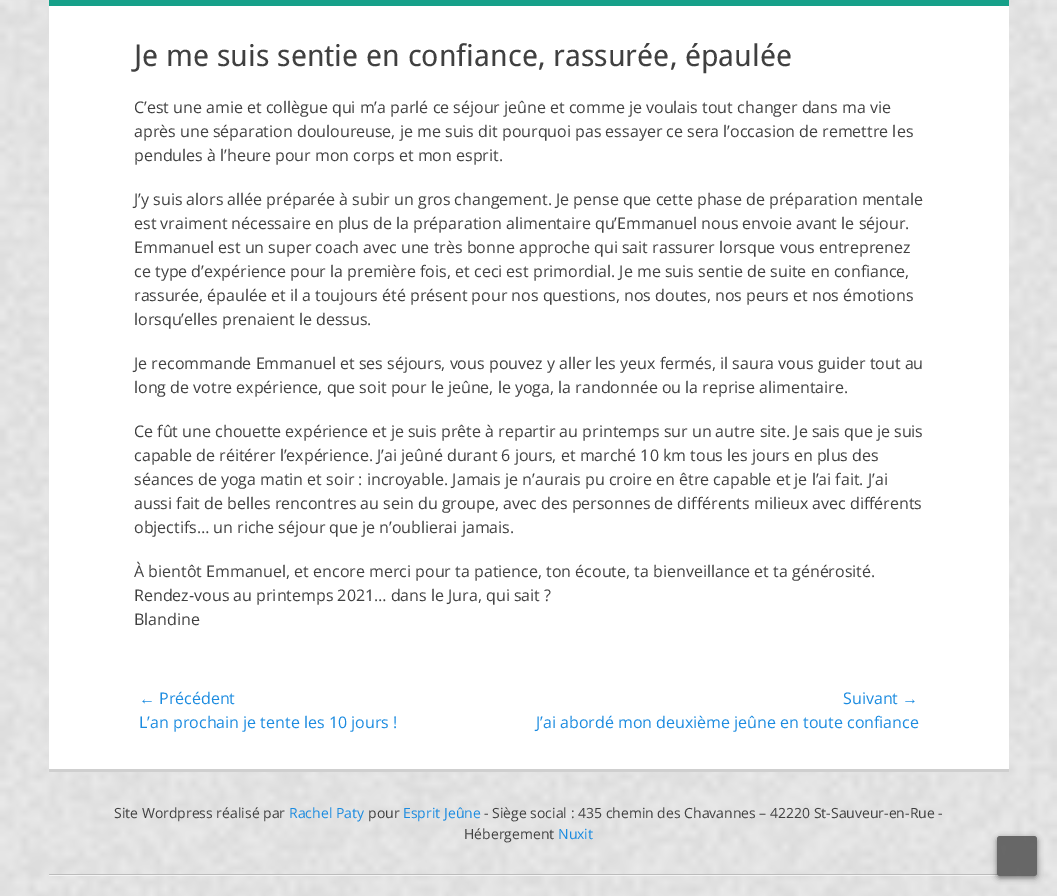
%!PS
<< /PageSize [1057 896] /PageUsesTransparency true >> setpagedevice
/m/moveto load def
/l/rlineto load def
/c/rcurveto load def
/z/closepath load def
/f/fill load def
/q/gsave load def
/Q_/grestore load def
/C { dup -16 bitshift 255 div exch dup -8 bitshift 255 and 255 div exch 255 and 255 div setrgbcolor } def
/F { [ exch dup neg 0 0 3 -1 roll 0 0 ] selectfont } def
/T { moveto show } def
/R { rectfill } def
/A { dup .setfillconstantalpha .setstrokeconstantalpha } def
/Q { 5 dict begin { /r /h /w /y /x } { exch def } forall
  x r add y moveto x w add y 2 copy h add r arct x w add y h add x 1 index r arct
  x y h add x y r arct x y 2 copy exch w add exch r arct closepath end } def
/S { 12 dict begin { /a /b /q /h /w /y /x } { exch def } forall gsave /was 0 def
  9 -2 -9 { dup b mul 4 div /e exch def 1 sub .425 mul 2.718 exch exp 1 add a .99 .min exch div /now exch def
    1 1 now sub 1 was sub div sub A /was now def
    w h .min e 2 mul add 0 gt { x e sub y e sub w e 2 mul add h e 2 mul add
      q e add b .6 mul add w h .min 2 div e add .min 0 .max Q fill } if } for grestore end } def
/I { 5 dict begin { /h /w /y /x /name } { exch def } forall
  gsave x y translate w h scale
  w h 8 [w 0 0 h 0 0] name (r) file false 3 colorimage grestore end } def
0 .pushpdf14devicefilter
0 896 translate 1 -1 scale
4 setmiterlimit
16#FFFFFF C
0 0 1057 896 R
(1.rgb) 0 0 1057 896 I
16#16A089 C
49 0 960 6 R
16#FFFFFF C
49 6 960 763 R
/DroidSans-Regular 30 F
16#404040 C
(Je me suis sentie en confiance, rassurée, épaulée) 134 66 T
/OpenSans-Regular 16 F
(C’est une amie et collègue qui m’a parlé ce séjour jeûne et comme je voulais tout changer dans ma vie) 134 113 T
(après une séparation douloureuse, je me suis dit pourquoi pas essayer ce sera l’occasion de remettre les) 134 137 T
(pendules à l’heure pour mon corps et mon esprit.) 134 161 T
(J’y suis alors allée préparée à subir un gros changement. Je pense que cette phase de préparation mentale) 134 205 T
(est vraiment nécessaire en plus de la préparation alimentaire qu’Emmanuel nous envoie avant le séjour.) 134 229 T
(Emmanuel est un super coach avec une très bonne approche qui sait rassurer lorsque vous entreprenez) 134 253 T
(ce type d’expérience pour la première fois, et ceci est primordial. Je me suis sentie de suite en confiance,) 134 277 T
(rassurée, épaulée et il a toujours été présent pour nos questions, nos doutes, nos peurs et nos émotions) 134 301 T
(lorsqu’elles prenaient le dessus.) 134 325 T
(Je recommande Emmanuel et ses séjours, vous pouvez y aller les yeux fermés, il saura vous guider tout au) 134 369 T
(long de votre expérience, que soit pour le jeûne, le yoga, la randonnée ou la reprise alimentaire.) 134 393 T
(Ce fût une chouette expérience et je suis prête à repartir au printemps sur un autre site. Je sais que je suis) 134 437 T
(capable de réitérer l’expérience. J’ai jeûné durant 6 jours, et marché 10 km tous les jours en plus des) 134 461 T
(séances de yoga matin et soir : incroyable. Jamais je n’aurais pu croire en être capable et je l’ai fait. J’ai) 134 485 T
(aussi fait de belles rencontres au sein du groupe, avec des personnes de différents milieux avec différents) 134 509 T
(objectifs… un riche séjour que je n’oublierai jamais.) 134 533 T
(À bientôt Emmanuel, et encore merci pour ta patience, ton écoute, ta bienveillance et ta générosité.) 134 577 T
(Rendez-vous au printemps 2021… dans le Jura, qui sait ?) 134 601 T
(Blandine) 134 625 T
/LiberationSans-Regular 16 F
16#1B8BE0 C
(←) 139 704 T
/OpenSans-Regular 16 F
(Précédent) 159 704 T
(L’an prochain je tente les 10 jours !) 139 728 T
(Suivant) 843 704 T
/LiberationSans-Regular 16 F
(→) 902 704 T
/OpenSans-Regular 16 F
(J’ai abordé mon deuxième jeûne en toute confiance) 536 728 T
16#CFCFCF C
49 769 960 3 R
16#BCBCBC C
49 874 960 1 R
/OpenSans-Regular 14 F
16#404040 C
(Site Wordpress réalisé par) 114 818 T
16#1B8BE0 C
(Rachel Paty) 289 818 T
16#404040 C
(pour) 368 818 T
16#1B8BE0 C
(Esprit Jeûne) 403 818 T
16#404040 C
(- Siège social : 435 chemin des Chavannes – 42220 St-Sauveur-en-Rue -) 484 818 T
(Hébergement) 464 839 T
16#1B8BE0 C
(Nuxit) 558 839 T
16#F4F4F4 C
49 875 960 1 R
q
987 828 m 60 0 l 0 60 l -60 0 l z 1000 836 m 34 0 l 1.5 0 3 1.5 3 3 c 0 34 l 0 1.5 -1.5 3 -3 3 c -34 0 l -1.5 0 -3 -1.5 -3 -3 c 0 -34 l 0 -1.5 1.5 -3 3 -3 c z eoclip newpath
16#000000 C
997 838 40 40 3 3 .5 S
Q_
0.99 A
16#666666 C
997 836 40 40 3 Q f
.poppdf14devicefilter showpage
